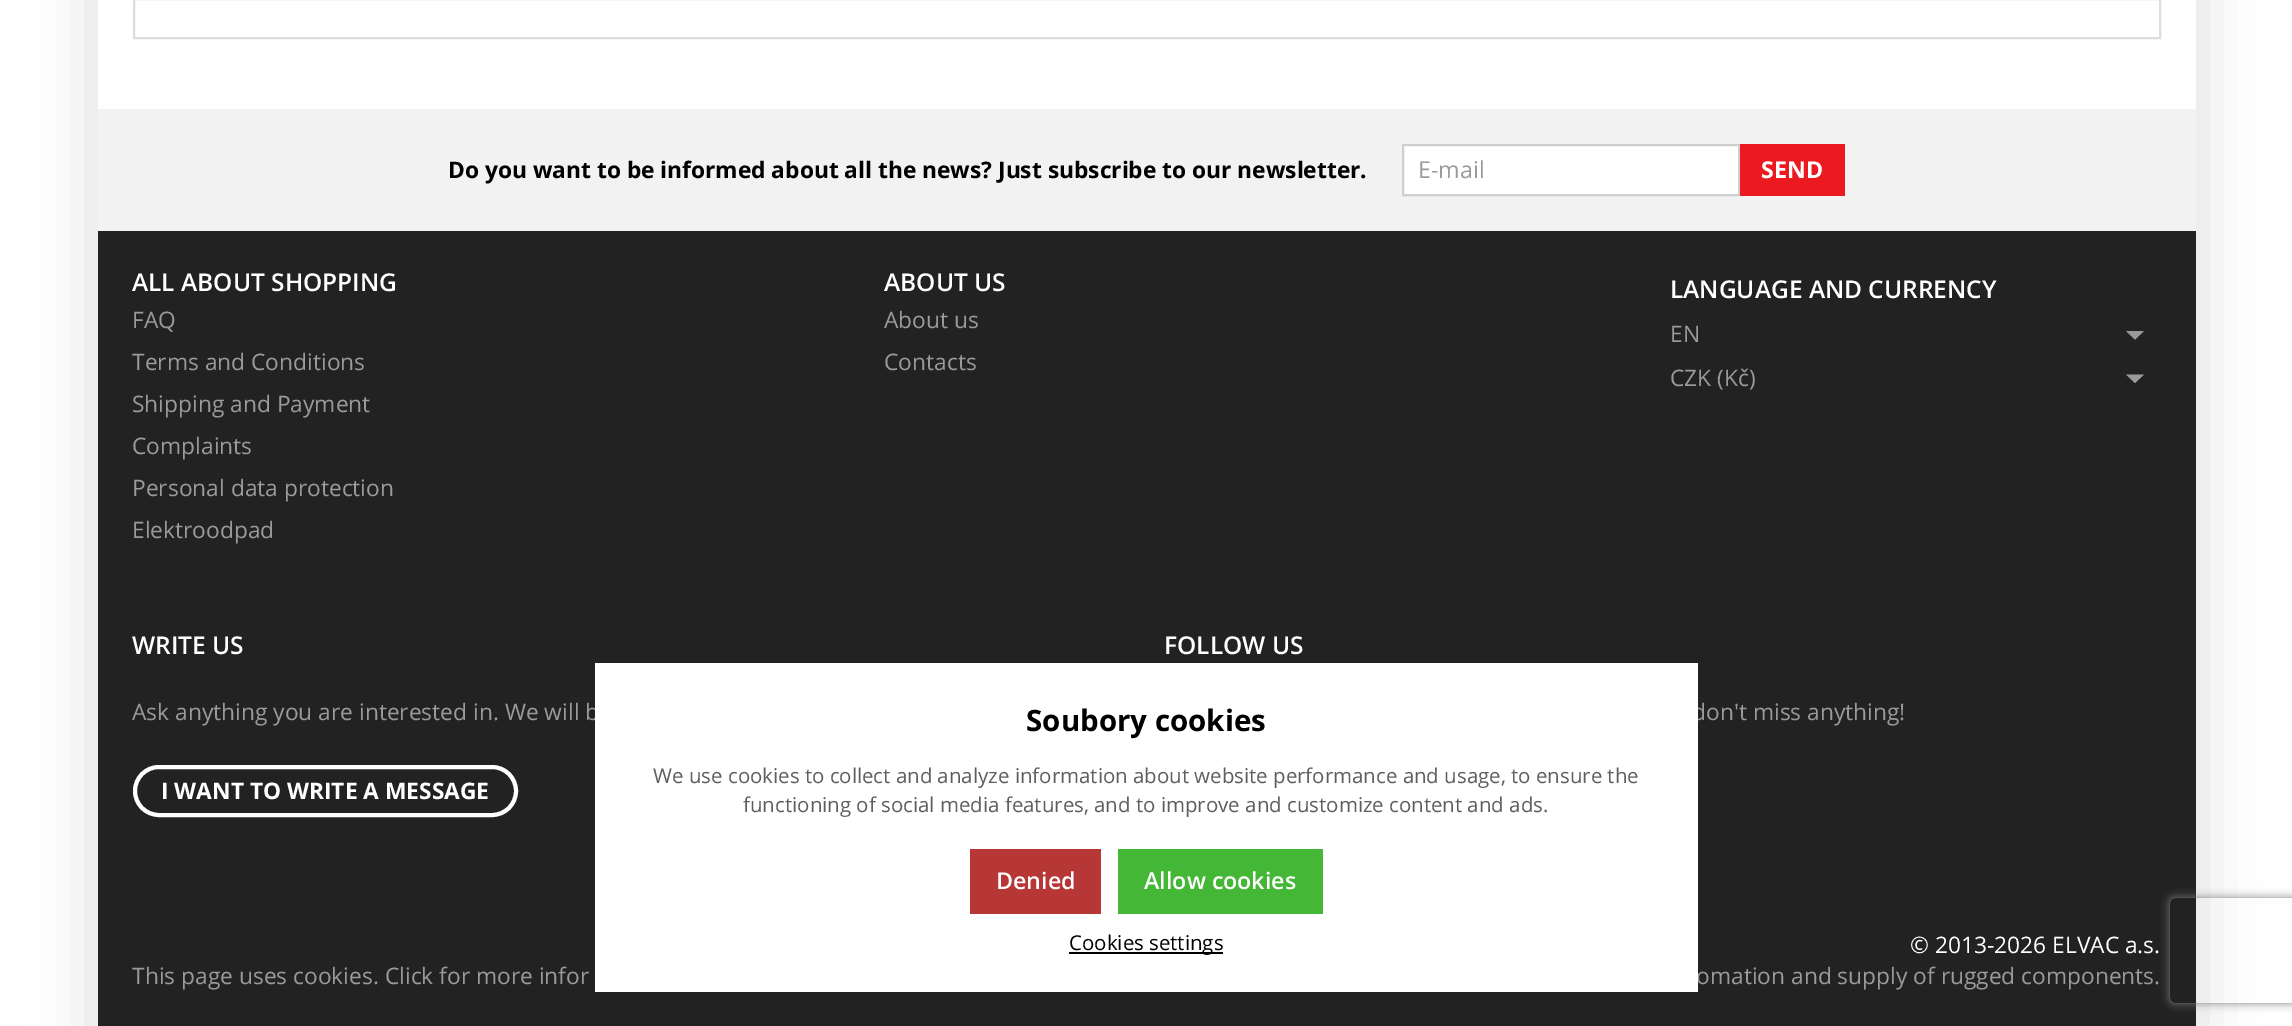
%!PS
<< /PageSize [2292 1026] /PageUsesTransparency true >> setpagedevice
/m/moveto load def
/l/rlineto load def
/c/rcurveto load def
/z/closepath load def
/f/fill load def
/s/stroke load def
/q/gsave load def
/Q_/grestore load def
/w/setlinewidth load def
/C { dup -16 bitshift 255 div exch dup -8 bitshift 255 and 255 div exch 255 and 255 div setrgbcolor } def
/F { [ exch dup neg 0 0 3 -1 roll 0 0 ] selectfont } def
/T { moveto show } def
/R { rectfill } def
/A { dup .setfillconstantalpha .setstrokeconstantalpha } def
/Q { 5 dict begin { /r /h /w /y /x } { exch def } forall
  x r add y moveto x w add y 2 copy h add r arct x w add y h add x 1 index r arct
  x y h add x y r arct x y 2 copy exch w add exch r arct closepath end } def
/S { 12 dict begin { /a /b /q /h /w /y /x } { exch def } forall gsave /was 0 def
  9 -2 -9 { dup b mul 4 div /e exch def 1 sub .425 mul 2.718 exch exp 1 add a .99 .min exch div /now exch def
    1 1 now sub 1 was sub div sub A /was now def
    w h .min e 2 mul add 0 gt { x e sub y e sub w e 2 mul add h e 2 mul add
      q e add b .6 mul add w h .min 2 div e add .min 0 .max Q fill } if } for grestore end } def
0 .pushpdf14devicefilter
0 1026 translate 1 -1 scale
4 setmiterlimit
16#FFFFFF C
0 0 2292 1026 R
q
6 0 m 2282 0 l 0 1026 l -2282 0 l z 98 -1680 m 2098 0 l 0 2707 l -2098 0 l z eoclip newpath
16#DDDDDD C
91 -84 2112 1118 0 28 1 S
Q_
16#DDDDDD C
2 w
134 -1 2026 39 rectstroke
16#F2F2F2 C
98 109 2098 122 R
/OpenSans-Bold 22.75 F
16#000000 C
(Do you want to be informed about all the news? Just subscribe to our newsletter.) 448 178 T
16#FFFFFF C
1403 145 m 336 0 l 0 50 l -336 0 l z q f Q_
16#CECECE C
s
/OpenSans-Regular 23.25 F
16#9A9A9A C
(E-mail) 1418 178 T
16#EB1A21 C
1740 144 105 52 R
/OpenSans-Bold 23.25 F
16#FFFFFF C
(SEND) 1761 178 T
16#222222 C
98 231 2098 795 R
/OpenSans-SemiBold 24.5 F
16#FFFFFF C
(ALL ABOUT SHOPPING) 132 291 T
/OpenSans-Regular 22.75 F
16#9A9A9A C
(FAQ) 132 328 T
(Terms and Conditions) 132 370 T
(Shipping and Payment) 132 412 T
(Complaints) 132 454 T
(Personal data protection) 132 496 T
(Elektroodpad) 132 538 T
/OpenSans-SemiBold 24.5 F
16#FFFFFF C
(ABOUT US) 884 291 T
/OpenSans-Regular 22.75 F
16#9A9A9A C
(About us) 884 328 T
(Contacts) 884 370 T
/OpenSans-SemiBold 24.5 F
16#FFFFFF C
(LANGUAGE AND CURRENCY) 1670 298 T
/OpenSans-Regular 22.75 F
16#9A9A9A C
(EN) 1670 342 T
2126 331 m 18 0 l -9 8.5 l z f
(CZK \(Kč\)) 1670 386 T
2126 374.5 m 18 0 l -9 8.5 l z f
/OpenSans-SemiBold 24.5 F
16#FFFFFF C
(WRITE US) 132 654 T
/OpenSans-Regular 22.75 F
16#9A9A9A C
(Ask anything you are interested in. We will b) 132 720 T
16#FFFFFF C
4 w
135 767 381 48 24 Q s
/OpenSans-Bold 22.75 F
(I WANT TO WRITE A MESSAGE) 161 799 T
/OpenSans-SemiBold 24.5 F
(FOLLOW US) 1164 654 T
/OpenSans-Regular 22.75 F
16#9A9A9A C
(don't miss anything!) 1692 720 T
(This page uses cookies. Click for more infor) 132 984 T
16#FFFFFF C
(© 2013-2026 ELVAC a.s.) 1910 953 T
16#9A9A9A C
(omation and supply of rugged components.) 1696 984 T
16#FFFFFF C
595 663 1103 329 R
/OpenSans-Bold 29.5 F
16#000000 C
(Soubory cookies) 1026 731 T
/OpenSans-Regular 20.45 F
16#5E5E5E C
(We use cookies to collect and analyze information about website performance and usage, to ensure the) 653 783 T
(functioning of social media features, and to improve and customize content and ads.) 743 812 T
16#B73636 C
970 849 131 65 R
/OpenSans-SemiBold 23.25 F
16#FFFFFF C
(Denied) 996 889 T
16#44B736 C
1118 849 205 65 R
16#FFFFFF C
(Allow cookies) 1144 889 T
16#000000 C
1069 952 154 2 R
/OpenSans-Regular 20.45 F
(Cookies settings) 1069 950 T
q
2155 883 m 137 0 l 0 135 l -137 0 l z 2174 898 m 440 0 l 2 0 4 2 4 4 c 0 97 l 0 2 -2 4 -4 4 c -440 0 l -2 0 -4 -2 -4 -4 c 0 -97 l 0 -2 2 -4 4 -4 c z eoclip newpath
16#808080 C
2170 898 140 105 4 4.5 1 S
Q_
.poppdf14devicefilter showpage
